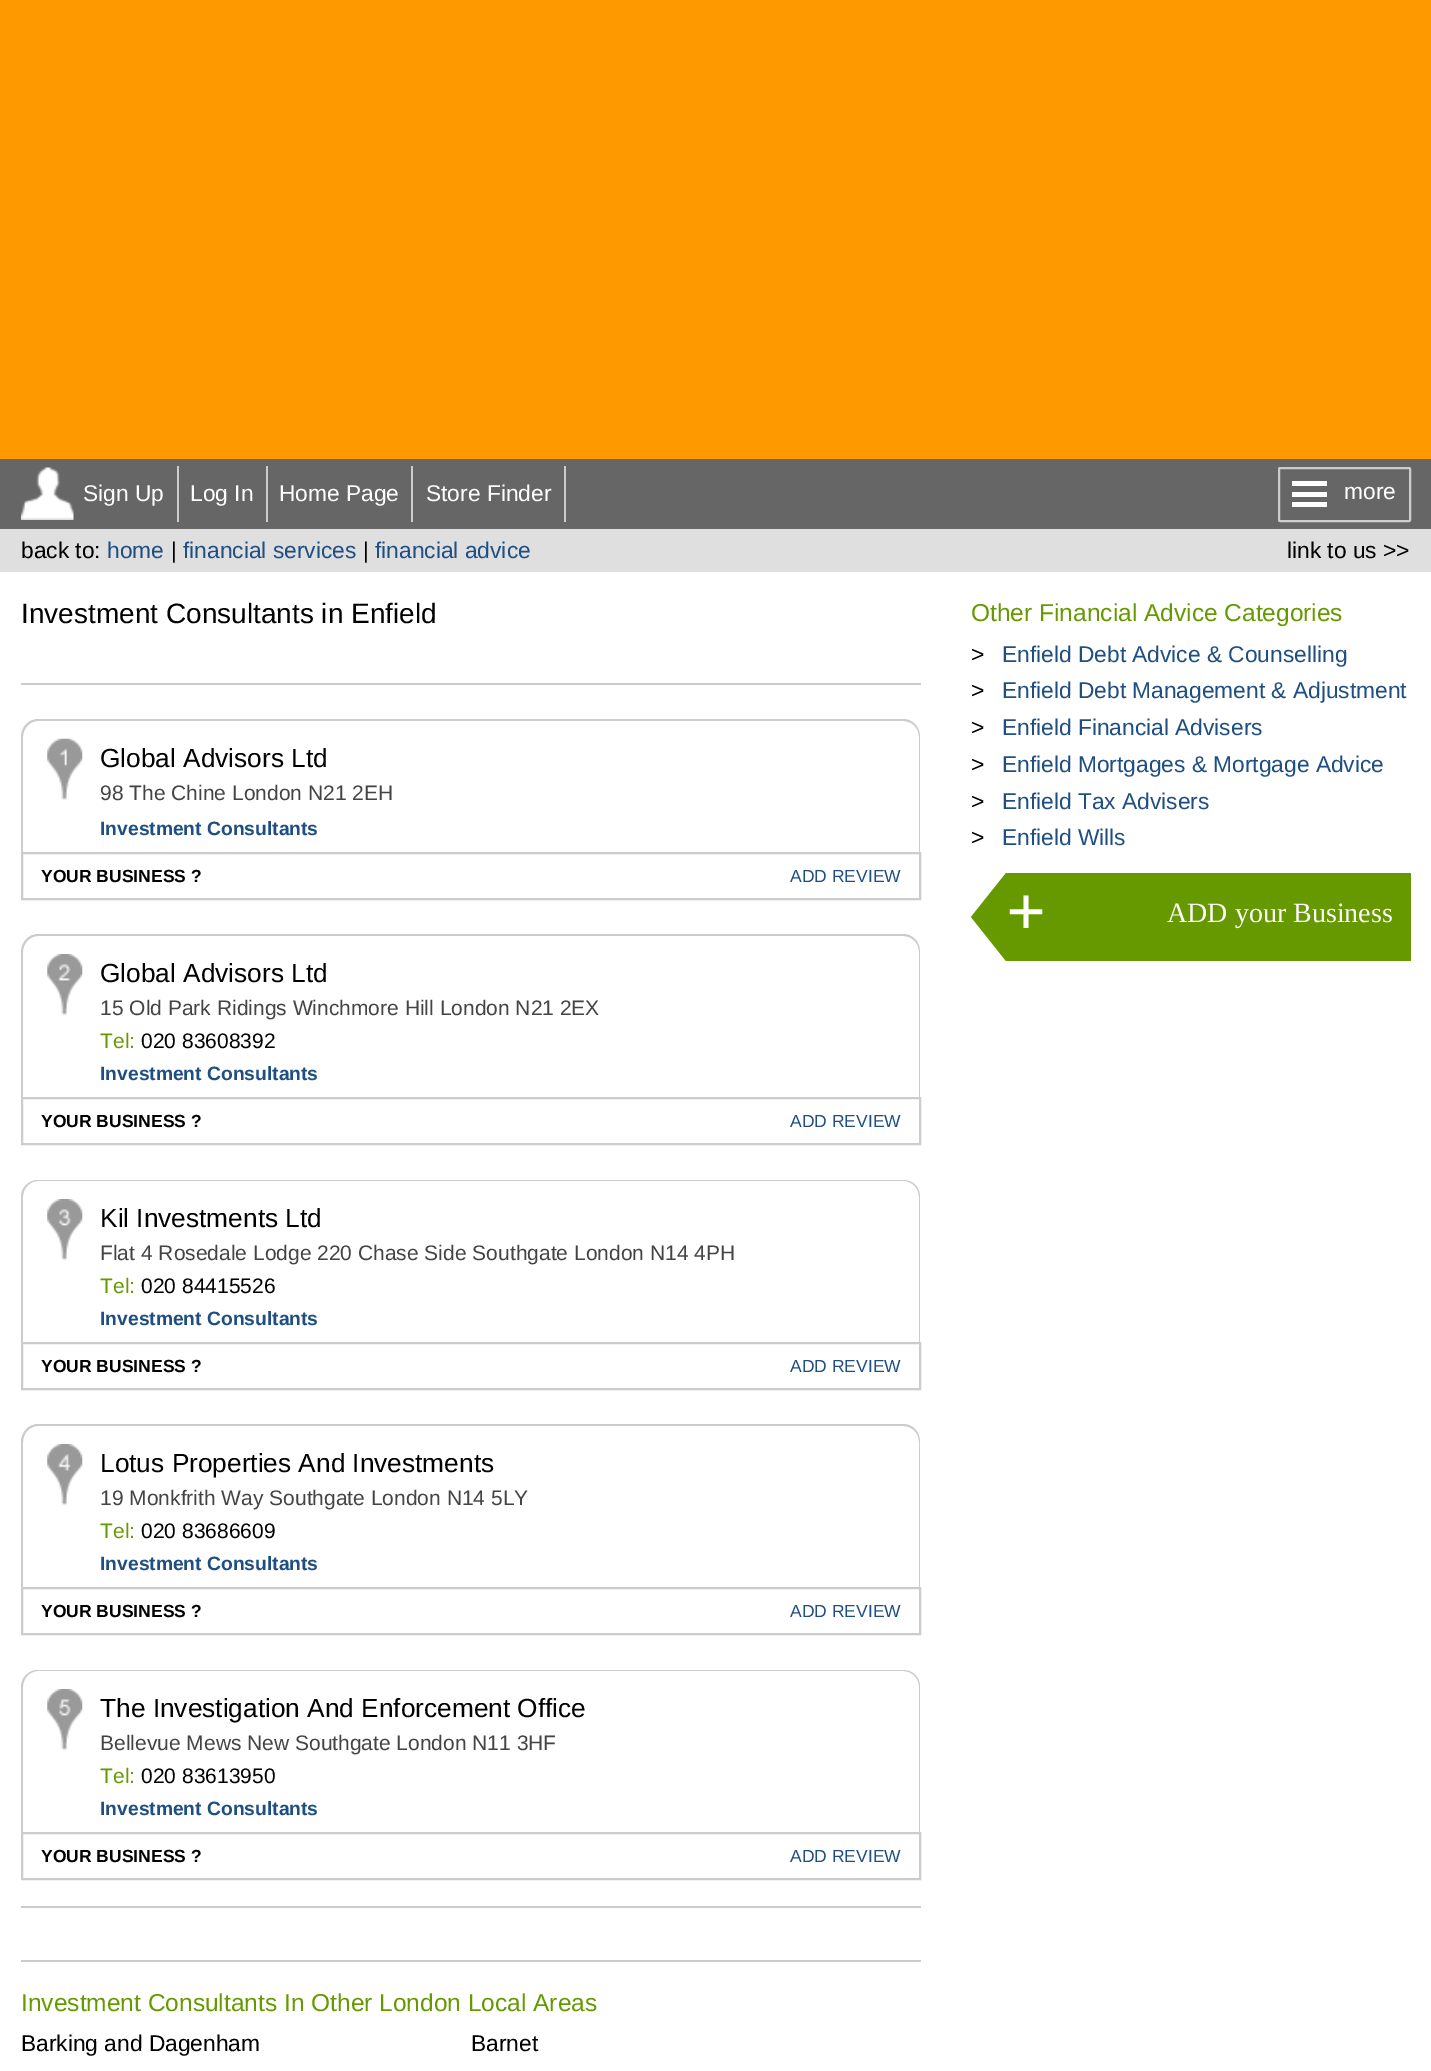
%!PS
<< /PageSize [1431 2071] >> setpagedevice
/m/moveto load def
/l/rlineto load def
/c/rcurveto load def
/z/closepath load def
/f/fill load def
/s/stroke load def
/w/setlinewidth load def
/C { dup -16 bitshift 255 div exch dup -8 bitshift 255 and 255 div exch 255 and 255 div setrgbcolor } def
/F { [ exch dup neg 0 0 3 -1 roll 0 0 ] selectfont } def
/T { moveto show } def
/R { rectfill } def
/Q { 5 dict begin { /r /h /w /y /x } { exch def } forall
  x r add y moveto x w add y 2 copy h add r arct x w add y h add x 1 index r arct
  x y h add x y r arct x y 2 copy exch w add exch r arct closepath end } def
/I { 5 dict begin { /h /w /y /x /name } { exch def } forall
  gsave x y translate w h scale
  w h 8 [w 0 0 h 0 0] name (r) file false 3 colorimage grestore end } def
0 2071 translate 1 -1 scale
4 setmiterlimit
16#FFFFFF C
0 0 1431 2071 R
16#FF9900 C
0 0 1431 459 R
16#666666 C
0 459 1431 70 R
(1.rgb) 21 467 53 53 I
16#CCCCCC C
177 466 2 56 R
/LiberationSans-Regular 22.75 F
16#FFFFFF C
(Sign Up) 83 501 T
16#CCCCCC C
266 466 2 56 R
16#FFFFFF C
(Log In) 190 501 T
16#CCCCCC C
411 466 2 56 R
16#FFFFFF C
(Home Page) 279 501 T
16#CCCCCC C
564 466 2 56 R
16#FFFFFF C
(Store Finder) 426 501 T
16#CCCCCC C
2 w
1279 468 131 53 1 Q s
16#FFFFFF C
1292 481 35 5 R
1292 492 35 5 R
1292 502 35 5 R
(more) 1344 499 T
16#DFDFDF C
0 529 1431 43 R
16#000000 C
(back to:) 21 558 T
16#1F4F82 C
(home) 107 558 T
16#000000 C
(|) 171 558 T
16#1F4F82 C
(financial services) 183 558 T
16#000000 C
(|) 363 558 T
16#1F4F82 C
(financial advice) 375 558 T
16#000000 C
(link to us >>) 1287 558 T
/LiberationSans-Regular 28 F
(Investment Consultants in Enfield) 21 623 T
16#CCCCCC C
21 683 900 2 R
38 719 m 865 0 l 10 0 17 8 17 18 c 0 115 l -899 0 l 0 -115 l 0 -10 8 -18 17 -18 c z 38 721 m 865 0 l 9 0 16 7 16 16 c 0 115 l -896 0 l 0 -115 l 0 -9 7 -16 15 -16 c z eofill
(2.rgb) 47 738 36 62 I
/LiberationSans-Regular 26.25 F
16#000000 C
(Global Advisors Ltd) 100 767 T
/LiberationSans-Regular 21 F
16#444444 C
(98 The Chine London N21 2EH) 100 800 T
/LiberationSans-Bold 19.25 F
16#1F4F82 C
(Investment Consultants) 100 835 T
16#CCCCCC C
22 853 898 46 rectstroke
/LiberationSans-Bold 17.5 F
16#000000 C
(YOUR BUSINESS ?) 41 882 T
/LiberationSans-Regular 17.5 F
16#1F4F82 C
(ADD REVIEW) 790 882 T
16#CCCCCC C
38 934 m 865 0 l 10 0 17 8 17 18 c 0 145 l -899 0 l 0 -145 l 0 -10 8 -18 17 -18 c z 38 936 m 865 0 l 9 0 16 7 16 16 c 0 145 l -896 0 l 0 -145 l 0 -9 7 -16 15 -16 c z eofill
(3.rgb) 47 954 36 62 I
/LiberationSans-Regular 26.25 F
16#000000 C
(Global Advisors Ltd) 100 982 T
/LiberationSans-Regular 21 F
16#444444 C
(15 Old Park Ridings Winchmore Hill London N21 2EX) 100 1015 T
16#669900 C
(Tel:) 100 1048 T
16#000000 C
(020 83608392) 141 1048 T
/LiberationSans-Bold 19.25 F
16#1F4F82 C
(Investment Consultants) 100 1080 T
16#CCCCCC C
22 1098 898 46 rectstroke
/LiberationSans-Bold 17.5 F
16#000000 C
(YOUR BUSINESS ?) 41 1127 T
/LiberationSans-Regular 17.5 F
16#1F4F82 C
(ADD REVIEW) 790 1127 T
16#CCCCCC C
38 1180 m 865 0 l 10 0 17 7 17 17 c 0 145 l -899 0 l 0 -145 l 0 -10 8 -17 17 -17 c z 38 1181 m 865 0 l 9 0 16 7 16 16 c 0 145 l -896 0 l 0 -145 l 0 -9 7 -16 15 -16 c z eofill
(4.rgb) 47 1199 36 62 I
/LiberationSans-Regular 26.25 F
16#000000 C
(Kil Investments Ltd) 100 1227 T
/LiberationSans-Regular 21 F
16#444444 C
(Flat 4 Rosedale Lodge 220 Chase Side Southgate London N14 4PH) 100 1260 T
16#669900 C
(Tel:) 100 1293 T
16#000000 C
(020 84415526) 141 1293 T
/LiberationSans-Bold 19.25 F
16#1F4F82 C
(Investment Consultants) 100 1325 T
16#CCCCCC C
22 1343 898 46 rectstroke
/LiberationSans-Bold 17.5 F
16#000000 C
(YOUR BUSINESS ?) 41 1372 T
/LiberationSans-Regular 17.5 F
16#1F4F82 C
(ADD REVIEW) 790 1372 T
16#CCCCCC C
38 1424 m 865 0 l 10 0 17 8 17 18 c 0 145 l -899 0 l 0 -145 l 0 -10 8 -18 17 -18 c z 38 1426 m 865 0 l 9 0 16 7 16 16 c 0 145 l -896 0 l 0 -145 l 0 -9 7 -16 15 -16 c z eofill
(5.rgb) 47 1444 36 62 I
/LiberationSans-Regular 26.25 F
16#000000 C
(Lotus Properties And Investments) 100 1472 T
/LiberationSans-Regular 21 F
16#444444 C
(19 Monkfrith Way Southgate London N14 5LY) 100 1505 T
16#669900 C
(Tel:) 100 1538 T
16#000000 C
(020 83686609) 141 1538 T
/LiberationSans-Bold 19.25 F
16#1F4F82 C
(Investment Consultants) 100 1570 T
16#CCCCCC C
22 1588 898 46 rectstroke
/LiberationSans-Bold 17.5 F
16#000000 C
(YOUR BUSINESS ?) 41 1617 T
/LiberationSans-Regular 17.5 F
16#1F4F82 C
(ADD REVIEW) 790 1617 T
16#CCCCCC C
38 1670 m 865 0 l 10 0 17 7 17 17 c 0 145 l -899 0 l 0 -145 l 0 -10 8 -17 17 -17 c z 38 1671 m 865 0 l 9 0 16 7 16 16 c 0 145 l -896 0 l 0 -145 l 0 -9 7 -16 15 -16 c z eofill
(6.rgb) 47 1689 36 62 I
/LiberationSans-Regular 26.25 F
16#000000 C
(The Investigation And Enforcement Office) 100 1717 T
/LiberationSans-Regular 21 F
16#444444 C
(Bellevue Mews New Southgate London N11 3HF) 100 1750 T
16#669900 C
(Tel:) 100 1783 T
16#000000 C
(020 83613950) 141 1783 T
/LiberationSans-Bold 19.25 F
16#1F4F82 C
(Investment Consultants) 100 1815 T
16#CCCCCC C
22 1833 898 46 rectstroke
/LiberationSans-Bold 17.5 F
16#000000 C
(YOUR BUSINESS ?) 41 1862 T
/LiberationSans-Regular 17.5 F
16#1F4F82 C
(ADD REVIEW) 790 1862 T
16#CCCCCC C
21 1906 900 2 R
21 1960 900 2 R
/LiberationSans-Regular 24.5 F
16#669900 C
(Investment Consultants In Other London Local Areas) 21 2011 T
/LiberationSans-Regular 22.75 F
16#000000 C
(Barking and Dagenham) 21 2051 T
(Barnet) 471 2051 T
/LiberationSans-Regular 24.5 F
16#669900 C
(Other Financial Advice Categories) 971 621 T
/LiberationSans-Regular 22.75 F
16#000000 C
(>) 971 662 T
16#1F4F82 C
(Enfield Debt Advice & Counselling) 1002 662 T
16#000000 C
(>) 971 698 T
16#1F4F82 C
(Enfield Debt Management & Adjustment) 1002 698 T
16#000000 C
(>) 971 735 T
16#1F4F82 C
(Enfield Financial Advisers) 1002 735 T
16#000000 C
(>) 971 772 T
16#1F4F82 C
(Enfield Mortgages & Mortgage Advice) 1002 772 T
16#000000 C
(>) 971 809 T
16#1F4F82 C
(Enfield Tax Advisers) 1002 809 T
16#000000 C
(>) 971 845 T
16#1F4F82 C
(Enfield Wills) 1002 845 T
16#669900 C
1006 873 m 0 88 l -35 -44 l z f
1006 873 405 88 R
/LiberationSerif-Bold 70 F
16#FFFFFF C
(+) 1006 935 T
/LiberationSerif-Regular 28 F
(ADD your Business) 1167 922 T
showpage
